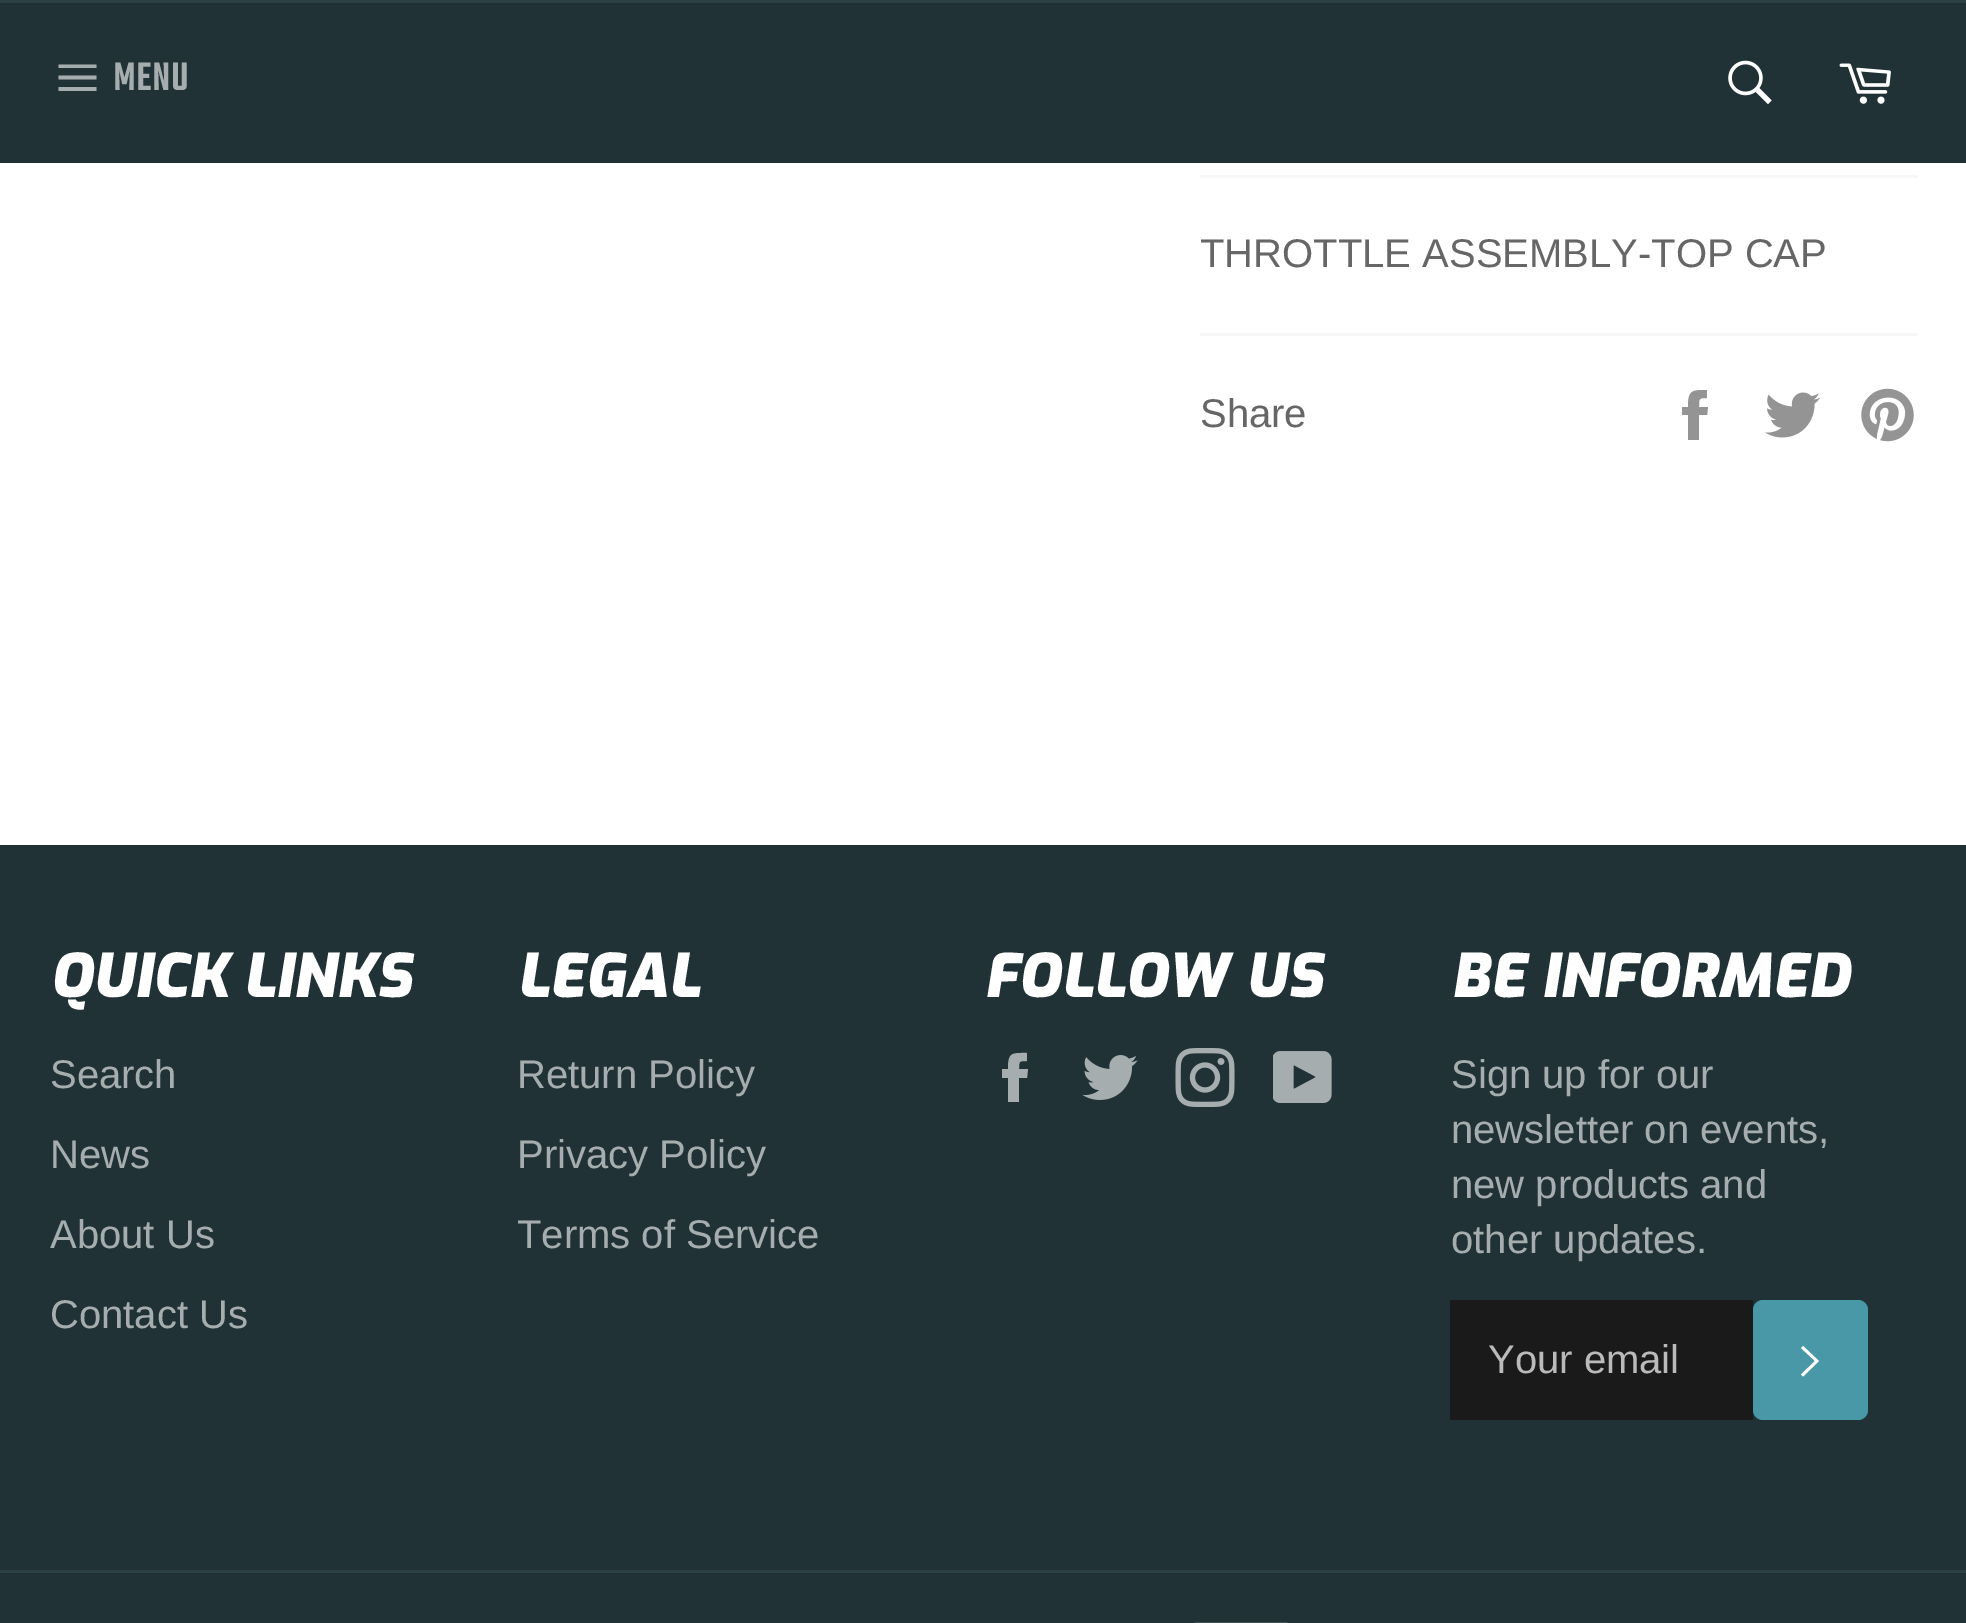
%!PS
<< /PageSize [1966 1623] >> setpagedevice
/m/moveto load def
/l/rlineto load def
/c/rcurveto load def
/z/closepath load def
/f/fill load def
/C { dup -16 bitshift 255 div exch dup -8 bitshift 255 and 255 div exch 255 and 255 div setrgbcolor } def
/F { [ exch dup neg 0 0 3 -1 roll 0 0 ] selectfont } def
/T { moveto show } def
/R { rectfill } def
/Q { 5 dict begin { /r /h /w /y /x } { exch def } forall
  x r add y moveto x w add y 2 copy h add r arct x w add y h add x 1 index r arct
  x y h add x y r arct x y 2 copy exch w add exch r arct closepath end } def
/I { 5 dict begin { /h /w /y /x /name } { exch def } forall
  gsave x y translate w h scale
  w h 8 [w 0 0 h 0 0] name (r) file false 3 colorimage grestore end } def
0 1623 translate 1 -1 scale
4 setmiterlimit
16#FFFFFF C
0 0 1966 1623 R
16#213236 C
0 3 1966 160 R
16#2B4146 C
0 0 1966 3 R
16#A6ADAF C
58.5 75.5 m 38 0 l 0 4 l -38 0 l z 58.5 64.5 m 38 0 l 0 3.5 l -38 0 l z 58.5 87 m 38 0 l 0 4 l -38 0 l z f
/Teko-Bold 42 F
113 90 m 1.5 0 (MENU) ashow
(1.rgb) 1728 60 44 45 I
(2.rgb) 1839 63 52 41 I
16#F7F7F7 C
1200 175 718 3 R
/LiberationSans-Regular 40 F
16#666666 C
(THROTTLE ASSEMBLY-TOP CAP) 1200 267 T
16#F7F7F7 C
1200 333 718 3 R
16#666666 C
(Share) 1200 427 T
16#949494 C
1699 407 m 0 -9 0 -9 8 -9 c 0 -8 l -15 0 -19 0 -19 17 c -6 0 l 0 8 l 6 0 l 0 25 l 11 0 l 0 -25 l 8 0 l 1 -8 l z f
(3.rgb) 1765 392 55 46 I
(4.rgb) 1861 388 53 54 I
16#213236 C
0 845 1966 778 R
/Exo-BlackItalic 60 F
16#FFFFFF C
(QUICK LINKS) 50 997 T
/LiberationSans-Regular 40 F
16#A6ADAF C
(Search) 50 1088 T
(News) 50 1168 T
(About Us) 50 1248 T
(Contact Us) 50 1328 T
/Exo-BlackItalic 60 F
16#FFFFFF C
(LEGAL) 517 997 T
/LiberationSans-Regular 40 F
16#A6ADAF C
(Return Policy) 517 1088 T
(Privacy Policy) 517 1168 T
(Terms of Service) 517 1248 T
/Exo-BlackItalic 60 F
16#FFFFFF C
(FOLLOW US) 984 997 T
16#A6ADAF C
1019 1069 m 0 -8 0 -8 8 -8 c 0 -8 l -15 0 -19 -1 -19 16 c -6 0 l 0 9 l 6 0 l 0 24 l 11 0 l 0 -24 l 8 0 l 1 -9 l z f
(5.rgb) 1082 1055 56 45 I
(6.rgb) 1175 1048 60 59 I
(7.rgb) 1273 1051 59 52 I
16#FFFFFF C
(BE INFORMED) 1451 997 T
/LiberationSans-Regular 40 F
16#A6ADAF C
(Sign up for our) 1451 1088 T
(newsletter on events,) 1451 1143 T
(new products and) 1451 1198 T
(other updates.) 1451 1253 T
16#1A1A1A C
1450 1300 303 120 R
16#BABABA C
(Your email) 1488 1373 T
16#4898A7 C
1753 1300 115 120 10 Q f
16#FFFFFF C
1801 1348 m 2 -2 l 16 15 l -16 15.5 l -2 -2 l 14 -13.5 l z f
16#2B4146 C
0 1570 1966 3 R
(8.rgb) 1194 1622 94 1 I
showpage
